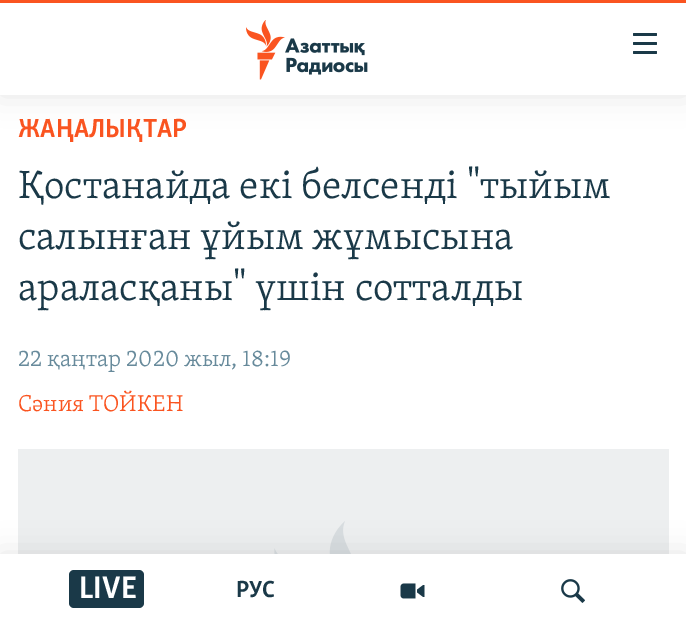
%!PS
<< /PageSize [686 628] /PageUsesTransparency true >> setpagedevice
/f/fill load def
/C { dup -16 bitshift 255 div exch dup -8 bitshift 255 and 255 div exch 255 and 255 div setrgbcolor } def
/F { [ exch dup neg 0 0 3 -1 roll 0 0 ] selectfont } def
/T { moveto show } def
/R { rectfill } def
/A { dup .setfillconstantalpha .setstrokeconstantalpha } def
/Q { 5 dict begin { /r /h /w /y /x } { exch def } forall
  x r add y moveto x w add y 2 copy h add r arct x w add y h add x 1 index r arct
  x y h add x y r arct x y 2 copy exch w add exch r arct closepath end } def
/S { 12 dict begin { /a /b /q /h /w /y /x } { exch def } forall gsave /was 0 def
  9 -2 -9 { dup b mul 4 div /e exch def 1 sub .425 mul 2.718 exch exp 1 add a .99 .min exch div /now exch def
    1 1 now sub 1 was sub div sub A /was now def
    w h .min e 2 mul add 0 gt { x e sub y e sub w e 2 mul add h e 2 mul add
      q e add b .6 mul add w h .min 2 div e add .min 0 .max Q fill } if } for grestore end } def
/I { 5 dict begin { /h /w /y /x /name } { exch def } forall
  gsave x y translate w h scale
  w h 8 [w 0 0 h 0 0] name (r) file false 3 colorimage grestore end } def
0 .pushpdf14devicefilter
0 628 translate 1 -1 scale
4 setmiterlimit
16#FFFFFF C
0 0 686 628 R
/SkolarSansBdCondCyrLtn-Bold 27 F
16#FA5420 C
(ЖАҢАЛЫҚТАР) 18 137 T
/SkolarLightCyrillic-Light 40.5 F
16#1A3948 C
(Қостанайда екі белсенді "тыйым) 18 198 T
(салынған ұйым жұмысына) 18 249 T
(араласқаны" үшін сотталды) 18 300 T
/SkolarLightCyrillic-Light 23.6 F
16#678A9B C
(22 қаңтар 2020 жыл, 18:19) 18 366 T
16#FA5420 C
(Сәния ТОЙКЕН) 18 411 T
16#EDEFF0 C
18 449 651 105 R
(1.rgb) 274 521 77 33 I
16#000000 C
0 0 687 95 0 15 .1 S
16#FFFFFF C
0 3 686 92 R
16#FA5420 C
0 0 686 3 R
(2.rgb) 246 20 122 60 I
(3.rgb) 633 33 24 21 I
16#000000 C
0 554 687 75 0 15 .1 S
16#FFFFFF C
0 554 686 74 R
16#1A3948 C
69 570 75 38 5 Q f
/SkolarSansBdCondCyrLtn-Bold 32 F
16#FFFFFF C
(LIVE) 79 598 T
/SkolarSansBdCondCyrLtn-Bold 24 F
16#1A3948 C
(РУС) 236 597 T
(4.rgb) 400 583 25 16 I
(5.rgb) 561 579 24 24 I
.poppdf14devicefilter showpage
